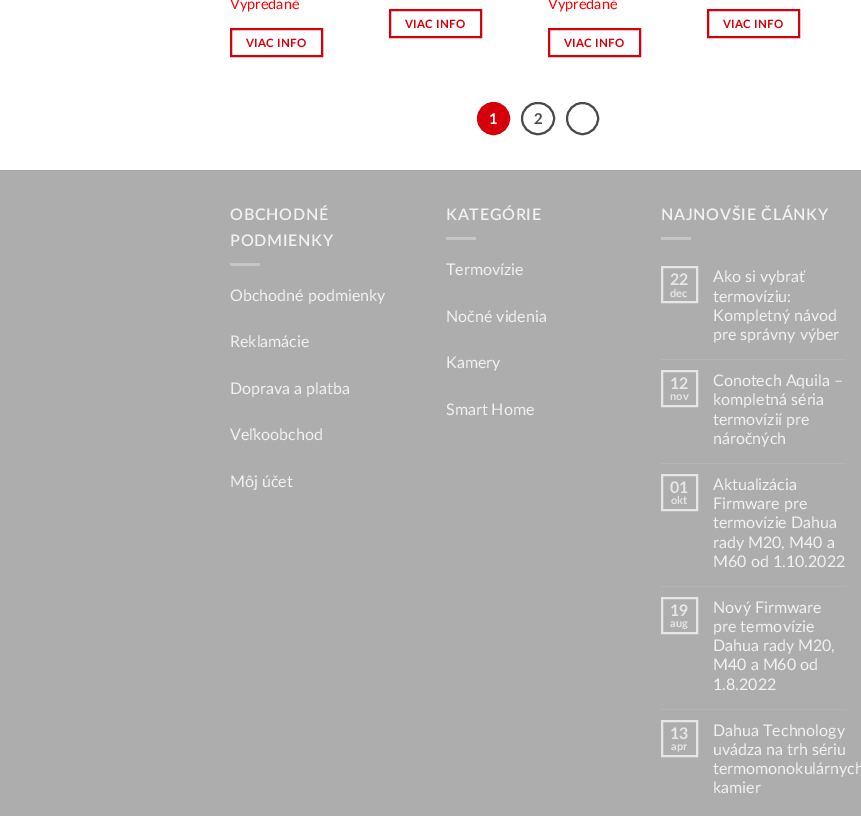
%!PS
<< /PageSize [861 816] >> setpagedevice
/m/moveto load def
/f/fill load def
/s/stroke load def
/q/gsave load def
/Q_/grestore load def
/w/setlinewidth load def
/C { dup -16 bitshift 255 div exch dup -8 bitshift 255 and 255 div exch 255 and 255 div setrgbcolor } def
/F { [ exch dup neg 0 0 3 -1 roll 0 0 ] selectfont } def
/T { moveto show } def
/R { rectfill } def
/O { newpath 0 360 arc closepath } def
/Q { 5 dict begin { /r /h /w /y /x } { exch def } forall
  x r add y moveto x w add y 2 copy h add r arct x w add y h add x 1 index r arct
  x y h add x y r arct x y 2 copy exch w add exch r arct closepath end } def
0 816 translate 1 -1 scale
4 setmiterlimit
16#FFFFFF C
0 0 861 816 R
/Lato-Regular 14.5 F
16#FF0000 C
(Vypredané) 230 9 T
16#D6000B C
2 w
231 29 91 27 rectstroke
/Lato-Bold 11.5 F
246 47 m .25 0 (VIAC INFO) ashow
390 10 91 27 rectstroke
405 28 m .25 0 (VIAC INFO) ashow
/Lato-Regular 14.5 F
16#FF0000 C
(Vypredané) 548 9 T
16#D6000B C
549 29 91 27 rectstroke
/Lato-Bold 11.5 F
564 47 m .25 0 (VIAC INFO) ashow
708 10 91 27 rectstroke
723 28 m .25 0 (VIAC INFO) ashow
493.5 118.5 15.5 O q f Q_
s
/Lato-Bold 15 F
16#FFFFFF C
(1) 489 124 T
16#4A4A4A C
522 103 32 31 15.5 Q s
(2) 534 124 T
582.5 118.5 15.5 O s
16#ADADAD C
0 171 861 645 R
16#A4A4A4 C
0 170 861 1 R
/Lato-SemiBold 16 F
16#F1F1F1 C
230 220 m .75 0 (OBCHODNÉ) ashow
230 246 m .75 0 (PODMIENKY) ashow
16#C6C6C6 C
230 263 30 3 R
/Lato-Regular 16 F
16#F1F1F1 C
(Obchodné podmienky) 230 301 T
(Reklamácie) 230 347 T
(Doprava a platba) 230 394 T
(Veľkoobchod) 230 440 T
(Môj účet) 230 487 T
/Lato-SemiBold 16 F
446 220 m .75 0 (KATEGÓRIE) ashow
16#C6C6C6 C
446 237 30 3 R
/Lato-Regular 16 F
16#F1F1F1 C
(Termovízie) 446 275 T
(Nočné videnia) 446 322 T
(Kamery) 446 368 T
(Smart Home) 446 415 T
/Lato-SemiBold 16 F
661 220 m .75 0 (NAJNOVŠIE ČLÁNKY) ashow
16#C6C6C6 C
661 237 30 3 R
16#E6E6E6 C
662 267 35 35 rectstroke
/Lato-Bold 16 F
(22) 670 285 T
/Lato-Bold 11 F
(dec) 670 297 T
/Lato-Regular 16 F
16#F1F1F1 C
(Ako si vybrať) 713 282 T
(termovíziu:) 713 302 T
(Kompletný návod) 713 321 T
(pre správny výber) 713 340 T
16#B4B4B4 C
661 359 185 1 R
16#E6E6E6 C
662 371 35 35 rectstroke
/Lato-Bold 16 F
(12) 670 389 T
/Lato-Bold 11 F
(nov) 670 400 T
/Lato-Regular 16 F
16#F1F1F1 C
(Conotech Aquila –) 713 386 T
(kompletná séria) 713 405 T
(termovízií pre) 713 425 T
(náročných) 713 444 T
16#B4B4B4 C
661 463 185 1 R
16#E6E6E6 C
662 475 35 35 rectstroke
/Lato-Bold 16 F
(01) 670 493 T
/Lato-Bold 11 F
(okt) 671 504 T
/Lato-Regular 16 F
16#F1F1F1 C
(Aktualizácia) 713 490 T
(Firmware pre) 713 509 T
(termovízie Dahua) 713 528 T
(rady M20, M40 a) 713 548 T
(M60 od 1.10.2022) 713 567 T
16#B4B4B4 C
661 586 185 1 R
16#E6E6E6 C
662 598 35 35 rectstroke
/Lato-Bold 16 F
(19) 670 616 T
/Lato-Bold 11 F
(aug) 670 627 T
/Lato-Regular 16 F
16#F1F1F1 C
(Nový Firmware) 713 613 T
(pre termovízie) 713 632 T
(Dahua rady M20,) 713 651 T
(M40 a M60 od) 713 670 T
(1.8.2022) 713 690 T
16#B4B4B4 C
661 709 185 1 R
16#E6E6E6 C
662 721 35 35 rectstroke
/Lato-Bold 16 F
(13) 670 739 T
/Lato-Bold 11 F
(apr) 671 750 T
/Lato-Regular 16 F
16#F1F1F1 C
(Dahua Technology) 713 736 T
(uvádza na trh sériu) 713 755 T
(termomonokulárnych) 713 774 T
(kamier) 713 793 T
showpage
